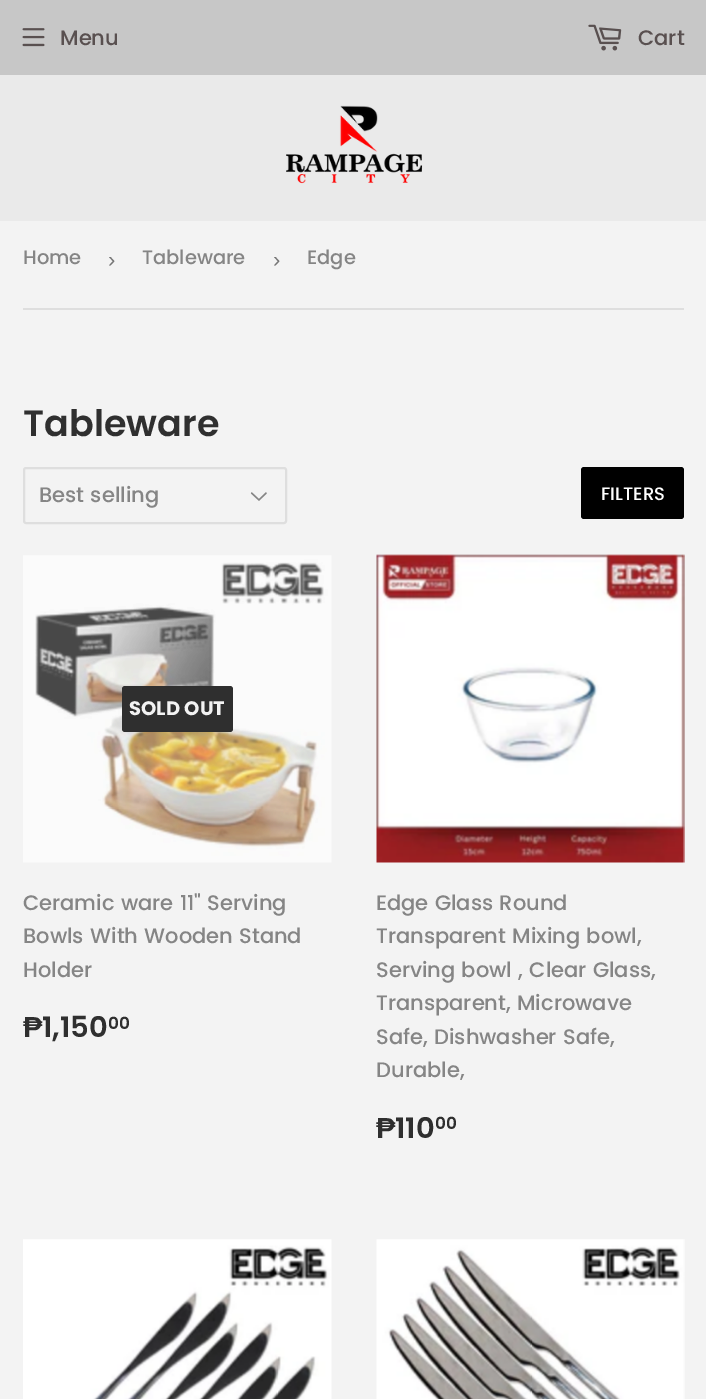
%!PS
<< /PageSize [706 1399] >> setpagedevice
/f/fill load def
/s/stroke load def
/w/setlinewidth load def
/C { dup -16 bitshift 255 div exch dup -8 bitshift 255 and 255 div exch 255 and 255 div setrgbcolor } def
/F { [ exch dup neg 0 0 3 -1 roll 0 0 ] selectfont } def
/T { moveto show } def
/R { rectfill } def
/Q { 5 dict begin { /r /h /w /y /x } { exch def } forall
  x r add y moveto x w add y 2 copy h add r arct x w add y h add x 1 index r arct
  x y h add x y r arct x y 2 copy exch w add exch r arct closepath end } def
/I { 5 dict begin { /h /w /y /x /name } { exch def } forall
  gsave x y translate w h scale
  w h 8 [w 0 0 h 0 0] name (r) file false 3 colorimage grestore end } def
0 1399 translate 1 -1 scale
4 setmiterlimit
16#F3F3F3 C
0 0 706 1399 R
16#C7C7C7 C
0 0 706 75 R
(1.rgb) 22 28 23 19 I
/Poppins-Medium 21 F
16#595050 C
(Menu) 60 45 T
(2.rgb) 588 24 34 27 I
(Cart) 638 45 T
16#EAEAEA C
0 75 706 146 R
(3.rgb) 286 105 137 79 I
16#DEDEDE C
23 308 661 2 R
/Poppins-Medium 19.5 F
16#858585 C
(Home) 23 264 T
/LiberationSans-Regular 22 F
16#767676 C
(›) 108 267 T
/Poppins-Medium 19.5 F
16#858585 C
(Tableware) 142 264 T
/LiberationSans-Regular 22 F
16#767676 C
(›) 273 267 T
/Poppins-Medium 19.5 F
16#858585 C
(Edge) 307 264 T
/Poppins-SemiBold 36.5 F
16#2F2F2F C
(Tableware) 23 436 T
(4.rgb) 250 492 17 9 I
16#DEDEDE C
2 w
24 468 262 55 2 Q s
/Poppins-Medium 21 F
16#858585 C
(Best selling) 39 502 T
16#000000 C
581 467 103 52 3 Q f
/Poppins-Medium 18 F
16#FFFFFF C
(FILTERS) 601 500 T
(5.rgb) 23 555 309 308 I
16#2F2F2F C
122 686 111 46 3 Q f
/Poppins-Bold 19.5 F
16#F3F3F3 C
(SOLD OUT) 129 715 T
/Poppins-Medium 21 F
16#858585 C
(Ceramic ware 11" Serving) 23 910 T
(Bowls With Wooden Stand) 23 943 T
(Holder) 23 977 T
/LiberationSans-Bold 29 F
16#2F2F2F C
(₱) 23 1037 T
/Poppins-SemiBold 29 F
(1,150) 42 1037 T
/Poppins-SemiBold 17 F
(00) 108 1029 T
(6.rgb) 376 554 309 309 I
/Poppins-Medium 21 F
16#858585 C
(Edge Glass Round) 376 910 T
(Transparent Mixing bowl,) 376 943 T
(Serving bowl , Clear Glass,) 376 977 T
(Transparent, Microwave) 376 1010 T
(Safe, Dishwasher Safe,) 376 1044 T
(Durable,) 376 1077 T
/LiberationSans-Bold 29 F
16#2F2F2F C
(₱) 376 1138 T
/Poppins-SemiBold 29 F
(110) 395 1138 T
/Poppins-SemiBold 17 F
(00) 435 1129 T
(7.rgb) 23 1239 309 160 I
(8.rgb) 376 1239 309 160 I
showpage
